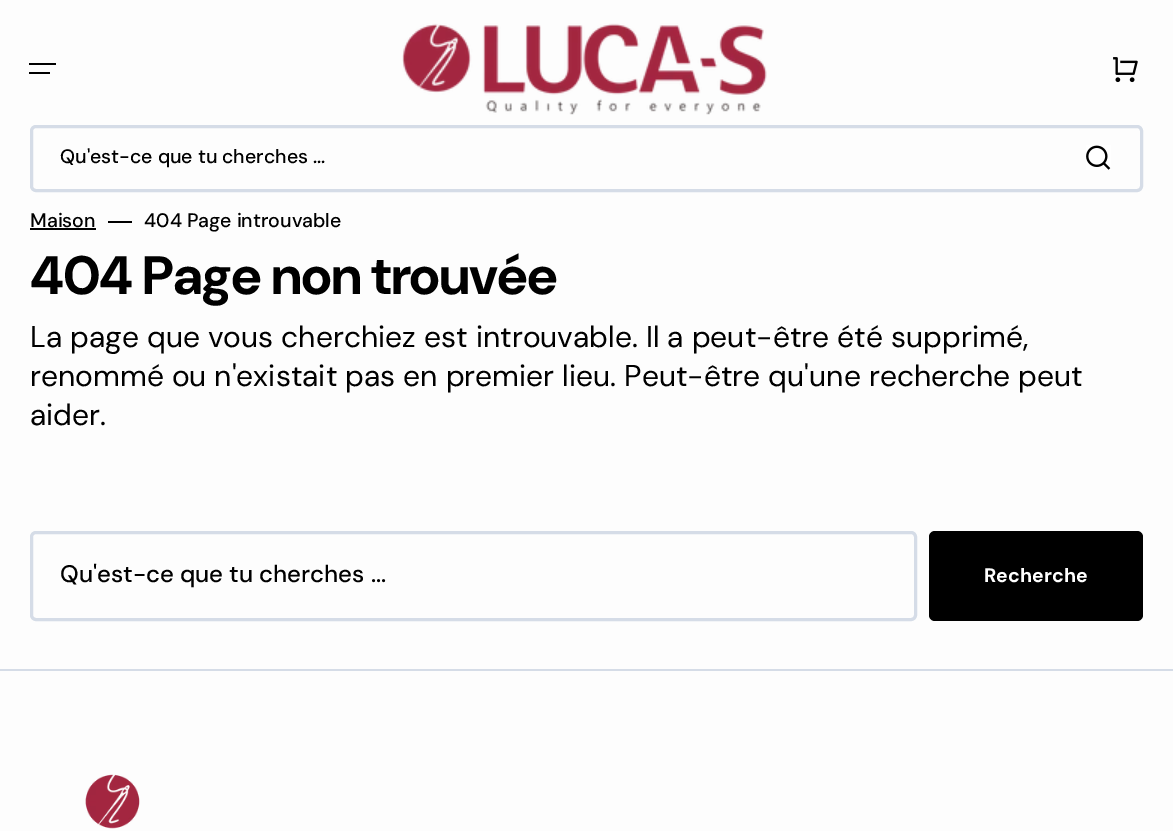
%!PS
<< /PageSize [1173 831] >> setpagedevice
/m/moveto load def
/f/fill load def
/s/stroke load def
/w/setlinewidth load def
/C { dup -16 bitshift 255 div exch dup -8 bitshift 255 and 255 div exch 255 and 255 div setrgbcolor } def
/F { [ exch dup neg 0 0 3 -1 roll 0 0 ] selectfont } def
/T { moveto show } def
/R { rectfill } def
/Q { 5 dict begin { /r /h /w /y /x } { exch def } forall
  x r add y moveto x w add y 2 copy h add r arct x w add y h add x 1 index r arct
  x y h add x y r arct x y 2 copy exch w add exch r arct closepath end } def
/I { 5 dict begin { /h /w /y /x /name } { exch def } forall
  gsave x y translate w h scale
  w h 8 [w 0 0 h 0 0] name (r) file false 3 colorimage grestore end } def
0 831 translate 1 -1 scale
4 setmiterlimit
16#FDFDFD C
0 0 1173 831 R
16#000000 C
29 63 27 2 R
29 72 21 2 R
(1.rgb) 402 23 365 92 I
(2.rgb) 1113 57 25 26 I
16#D5DCE7 C
3 w
31.5 126.5 1110 64 4.5 Q s
/DMSans-Medium 19.5 F
16#000000 C
(Qu'est-ce que tu cherches ...) 60 163 T
(3.rgb) 1086 145 25 25 I
(Maison) 30 227 T
30 228 66 2 R
108 221 24 2 R
(404 Page introuvable) 144 227 T
/DMSans-Bold 54 F
30 294 m -1.1 0 (404 Page non trouvée) ashow
/DMSans-Regular 30 F
(La page que vous cherchiez est introuvable. Il a peut-être été supprimé,) 30 347 T
(renommé ou n'existait pas en premier lieu. Peut-être qu'une recherche peut) 30 386 T
(aider.) 30 425 T
16#D5DCE7 C
31.5 532.5 884 87 4.5 Q s
/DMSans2-Medium 24 F
16#000000 C
(Qu'est-ce que tu cherches ...) 60 582 T
929 531 214 90 6 Q f
/DMSans2-Bold 19.5 F
16#FFFFFF C
(Recherche) 984 582 T
16#D5DCE7 C
0 669 1173 2 R
(4.rgb) 85 774 55 55 I
showpage
